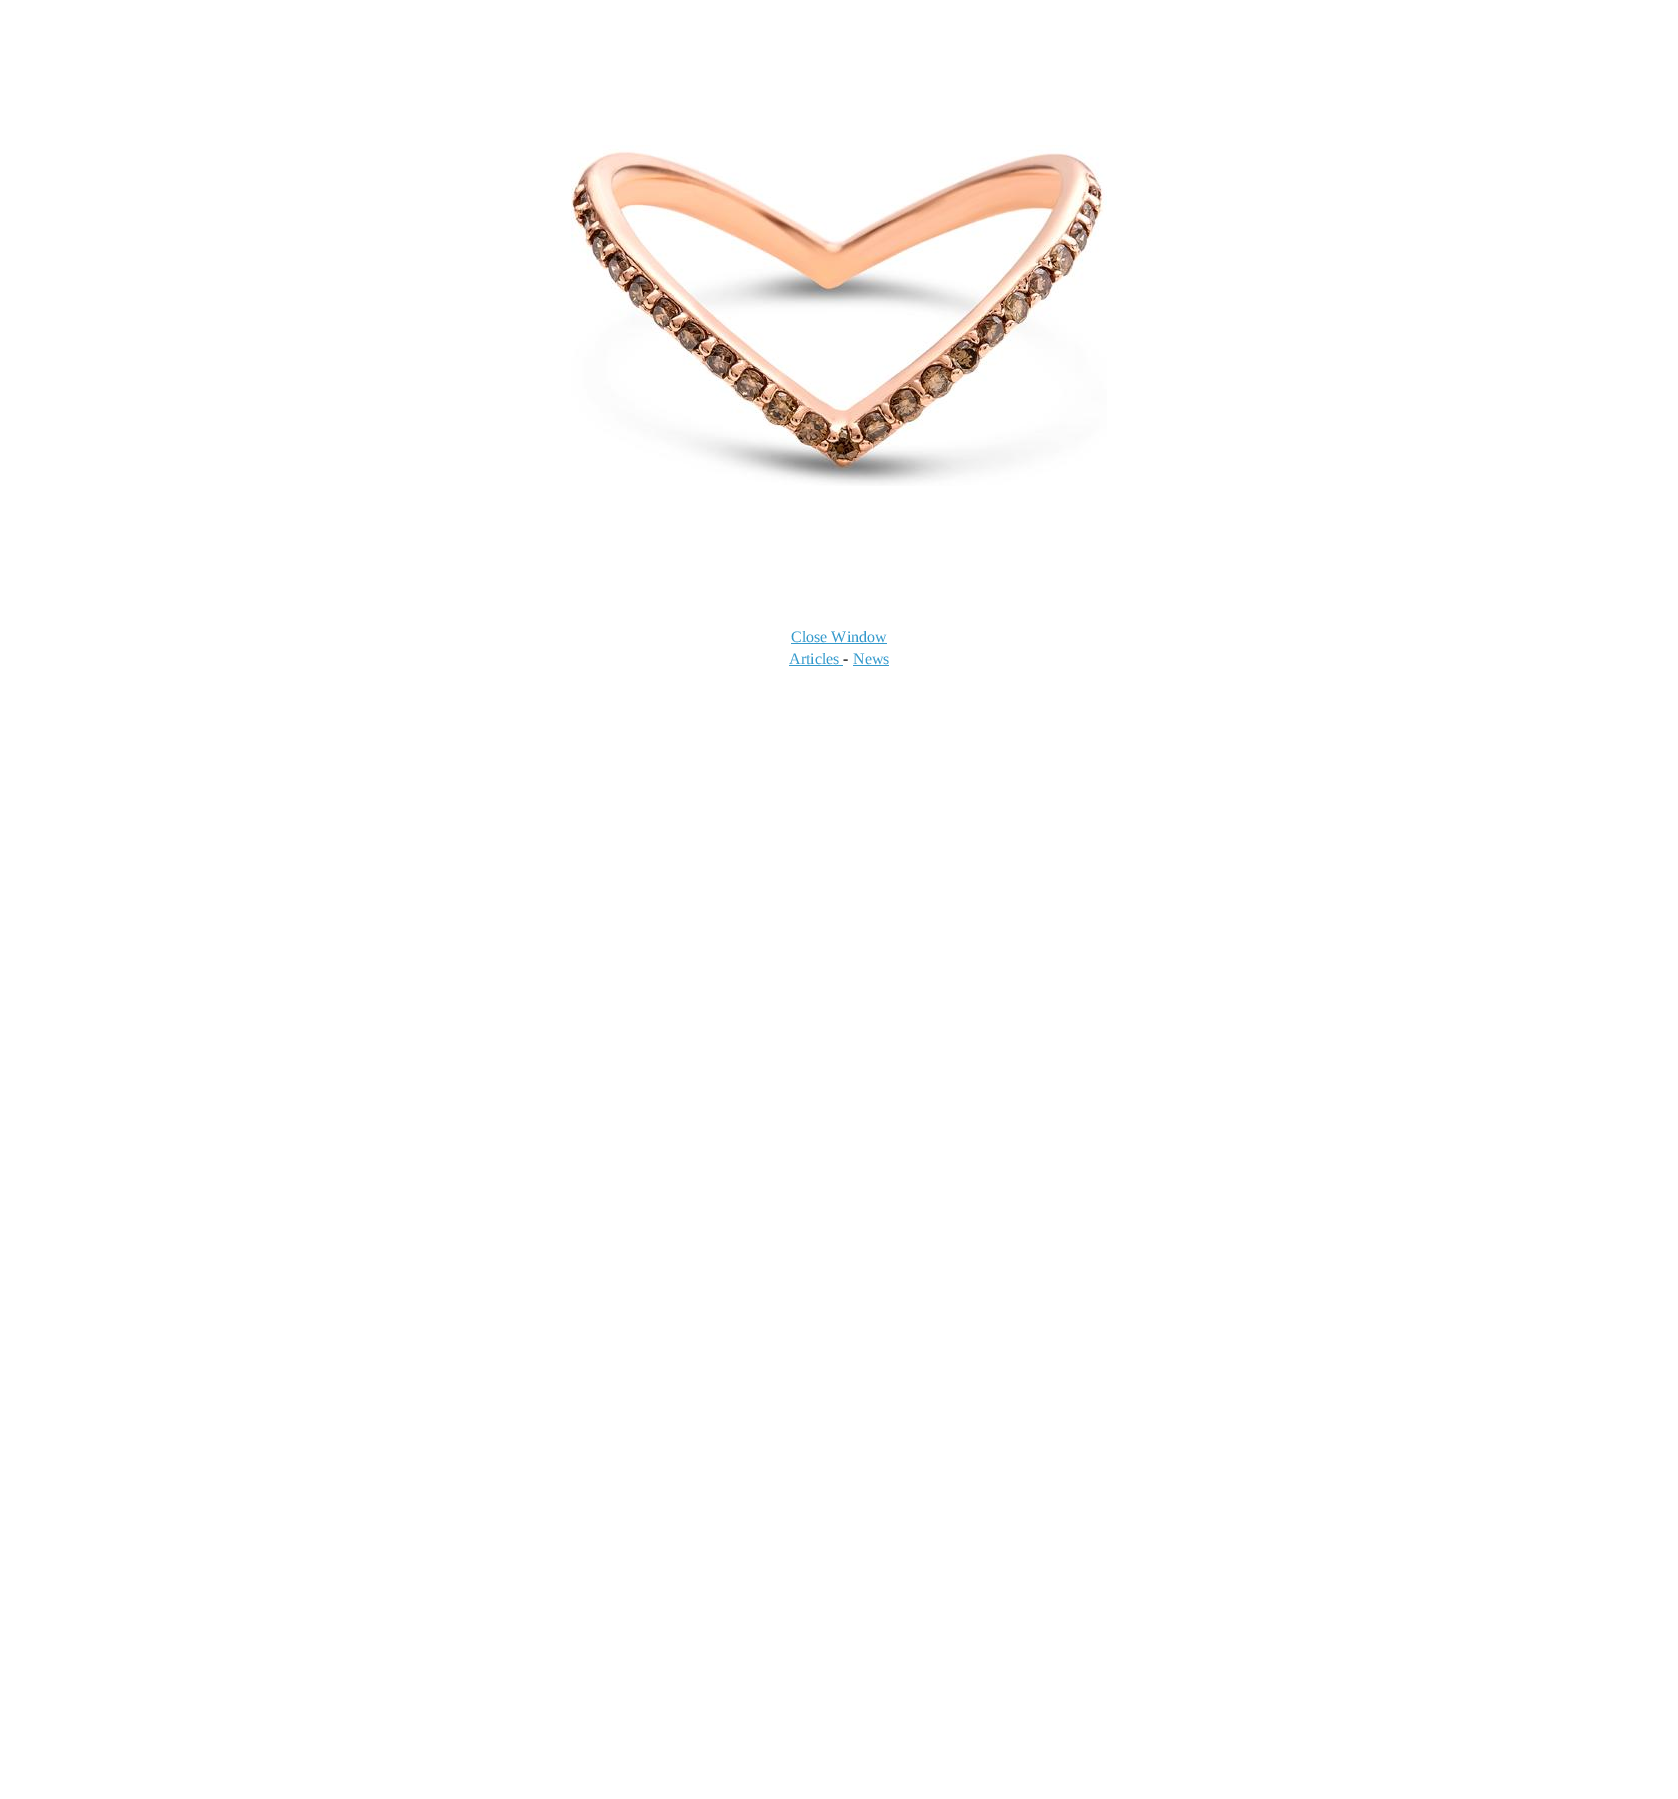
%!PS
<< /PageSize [1678 1799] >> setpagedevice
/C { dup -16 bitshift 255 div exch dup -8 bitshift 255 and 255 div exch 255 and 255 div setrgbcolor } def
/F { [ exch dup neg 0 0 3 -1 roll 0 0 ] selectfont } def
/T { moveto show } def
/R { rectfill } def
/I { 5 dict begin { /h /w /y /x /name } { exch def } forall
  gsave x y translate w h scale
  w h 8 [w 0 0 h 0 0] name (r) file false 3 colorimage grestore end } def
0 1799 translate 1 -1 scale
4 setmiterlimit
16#FFFFFF C
0 0 1678 1799 R
(1.rgb) 571 145 536 341 I
/LiberationSerif-Regular 16 F
16#3399CC C
(Close Window) 791 642 T
791 643 96 1 R
(Articles) 789 664 T
789 665 54 1 R
16#000000 C
(-) 843 664 T
16#3399CC C
(News) 853 664 T
853 665 36 1 R
showpage
